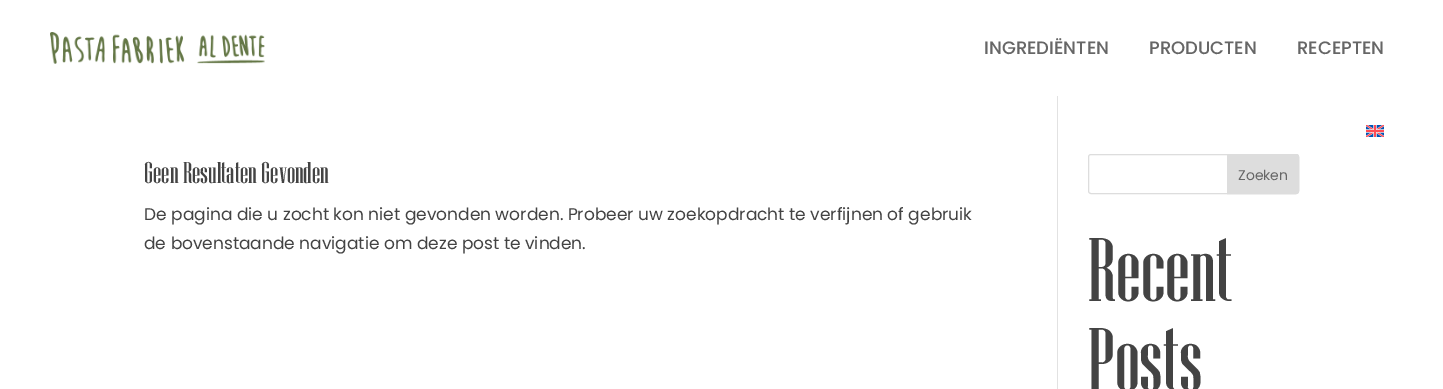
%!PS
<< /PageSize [1443 389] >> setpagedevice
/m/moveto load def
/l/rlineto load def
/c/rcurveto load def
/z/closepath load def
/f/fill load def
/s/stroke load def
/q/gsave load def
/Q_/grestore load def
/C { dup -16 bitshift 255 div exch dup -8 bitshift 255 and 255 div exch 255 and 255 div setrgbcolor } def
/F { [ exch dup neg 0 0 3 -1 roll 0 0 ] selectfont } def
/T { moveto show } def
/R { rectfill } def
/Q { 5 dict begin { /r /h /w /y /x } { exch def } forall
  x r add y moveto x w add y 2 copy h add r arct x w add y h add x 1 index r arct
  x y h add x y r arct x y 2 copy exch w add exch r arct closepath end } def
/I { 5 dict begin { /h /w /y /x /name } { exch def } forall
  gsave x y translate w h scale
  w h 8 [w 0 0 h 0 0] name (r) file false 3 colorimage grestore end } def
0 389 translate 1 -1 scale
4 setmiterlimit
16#FFFFFF C
0 0 1443 389 R
(1.rgb) 50 32 215 32 I
/Poppins-Medium 18 F
16#666666 C
(INGREDIËNTEN) 984 54 T
(PRODUCTEN) 1149 54 T
(RECEPTEN) 1297 54 T
(2.rgb) 1366 125 18 12 I
16#E2E2E2 C
1057 96 1 293 R
/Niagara-Regular 30 F
16#434343 C
(Geen Resultaten Gevonden) 144 183 T
/Poppins-Regular 17 F
(De pagina die u zocht kon niet gevonden worden. Probeer uw zoekopdracht te verfijnen of gebruik) 144 220 T
(de bovenstaande navigatie om deze post te vinden.) 144 249 T
16#DDDDDD C
1088.5 154.5 210 39 2.5 Q s
1227.5 154.5 m 68.5 0 l 1.5 0 2.5 1 2.5 2.5 c 0 34 l 0 1.5 -1 2.5 -2.5 2.5 c -68.5 0 l z q f Q_
s
/Poppins-Regular 14 F
16#666666 C
(Zoeken) 1238 180 T
/Niagara-Regular 90 F
16#434343 C
(Recent) 1088 301 T
(Posts) 1088 391 T
showpage
